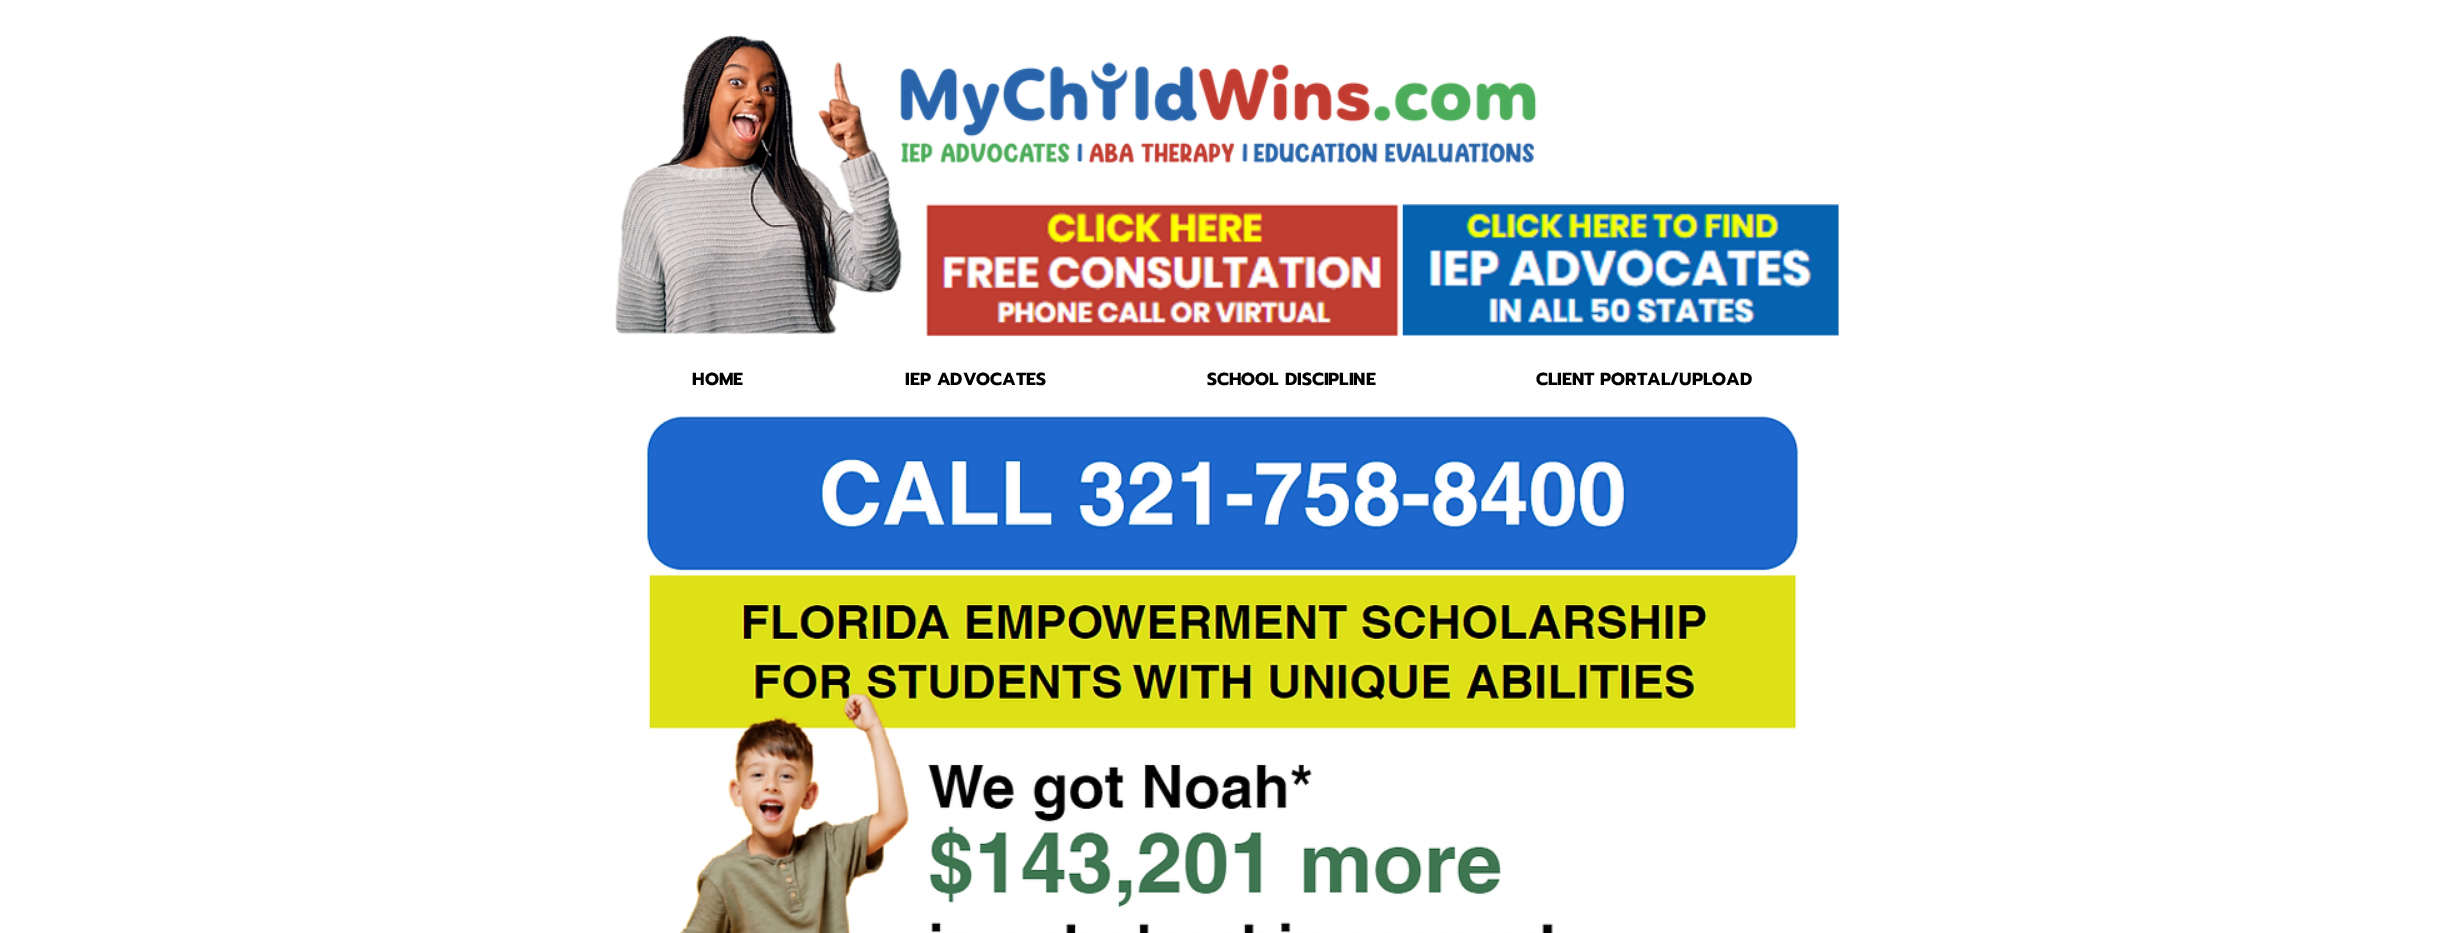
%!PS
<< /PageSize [2443 933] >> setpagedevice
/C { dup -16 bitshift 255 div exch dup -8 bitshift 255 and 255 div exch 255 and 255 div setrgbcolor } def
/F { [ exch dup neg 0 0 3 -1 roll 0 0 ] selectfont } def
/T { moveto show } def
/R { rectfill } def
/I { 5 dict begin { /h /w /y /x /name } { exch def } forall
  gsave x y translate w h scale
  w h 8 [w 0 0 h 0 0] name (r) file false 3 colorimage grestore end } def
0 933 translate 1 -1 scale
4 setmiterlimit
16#FFFFFF C
0 0 2443 933 R
(2.rgb) 900 62 637 101 I
(1.rgb) 615 35 287 299 I
(3.rgb) 926 204 473 133 I
(4.rgb) 1402 204 437 133 I
/Prompt-Bold 17.5 F
16#000000 C
(HOME) 692 385 T
(IEP ADVOCATES) 905 385 T
(SCHOOL DISCIPLINE) 1207 385 T
(CLIENT PORTAL/UPLOAD) 1536 385 T
(5.rgb) 646 416 1153 517 I
showpage
